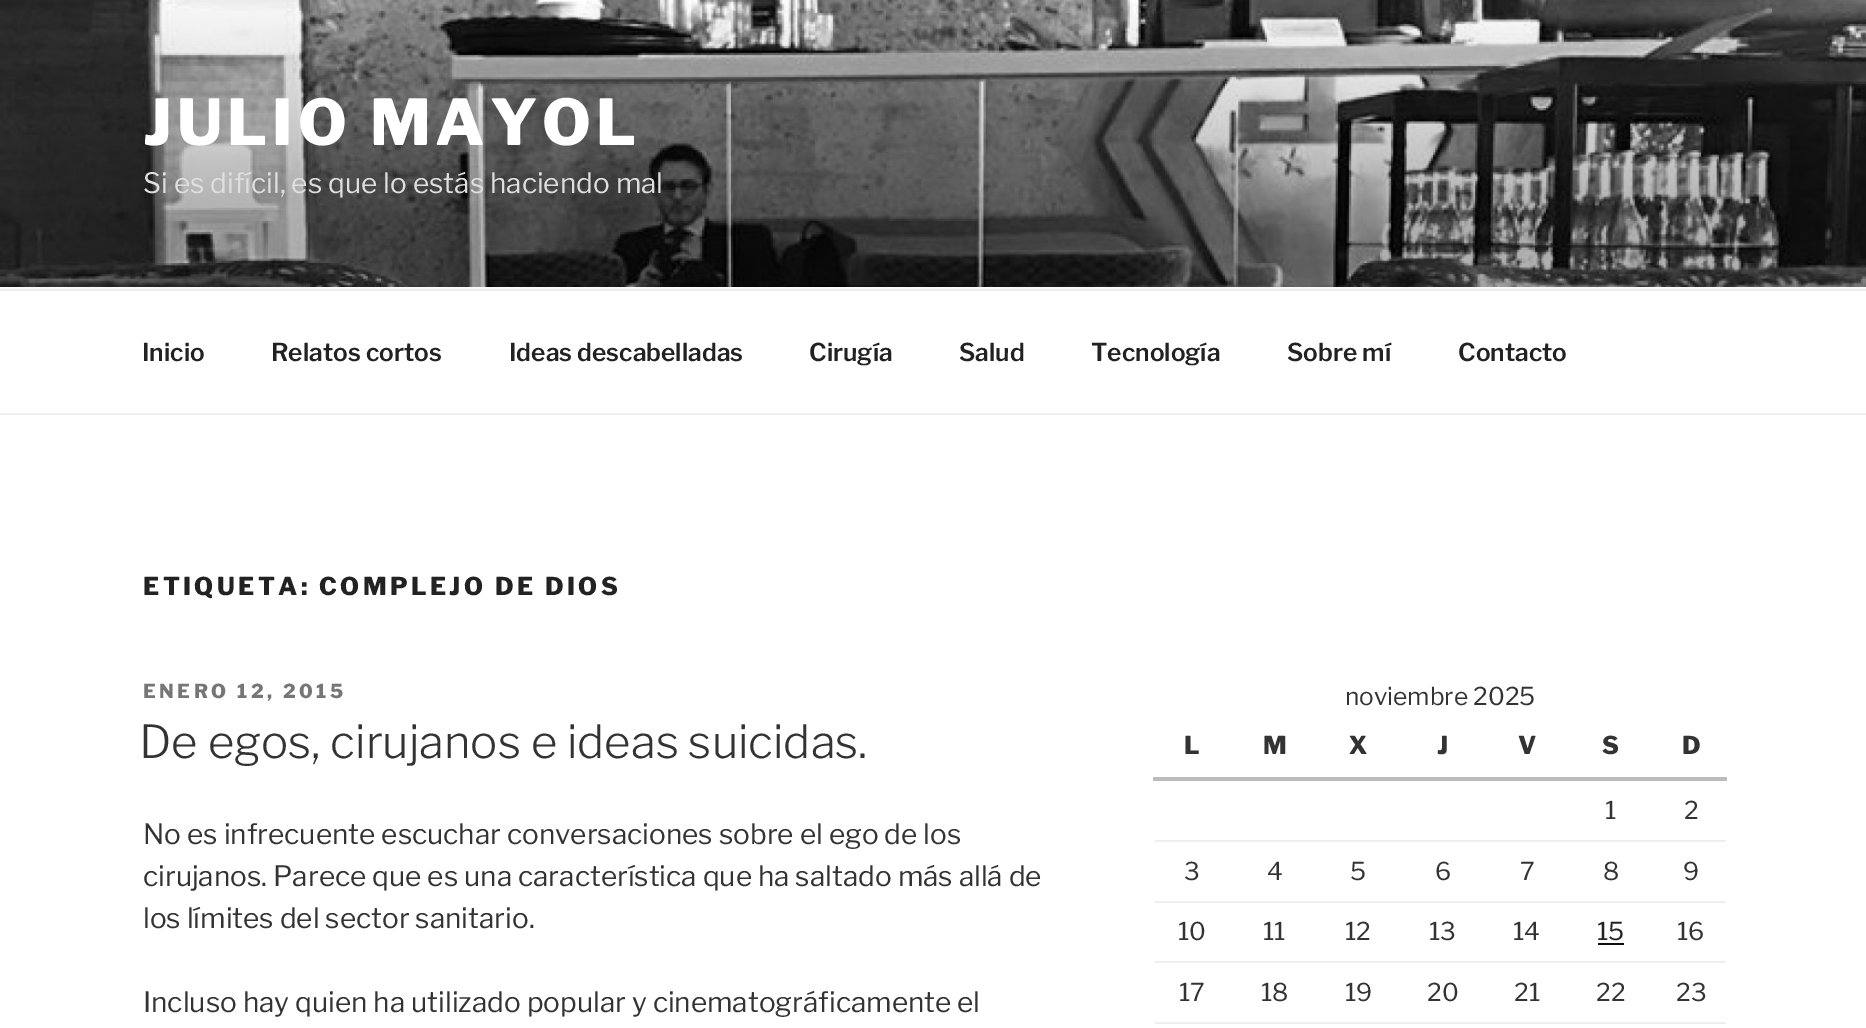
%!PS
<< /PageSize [1866 1028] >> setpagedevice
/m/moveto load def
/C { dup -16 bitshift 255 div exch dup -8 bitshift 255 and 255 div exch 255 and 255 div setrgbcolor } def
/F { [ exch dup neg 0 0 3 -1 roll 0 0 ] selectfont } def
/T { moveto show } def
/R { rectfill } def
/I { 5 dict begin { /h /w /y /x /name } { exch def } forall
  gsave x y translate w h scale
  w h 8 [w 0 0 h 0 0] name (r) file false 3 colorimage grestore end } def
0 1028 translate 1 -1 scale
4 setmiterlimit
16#FFFFFF C
0 0 1866 1028 R
16#FAFAFA C
0 287 1866 2 R
(1.rgb) 0 0 1866 287 I
/LibreFranklin-Thin 63 F
16#FFFFFF C
143 145 m 5 0 (JULIO MAYOL) ashow
/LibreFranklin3-Thin 28 F
16#DFDFDF C
(Si es difícil, es que lo estás haciendo mal) 143 193 T
16#EEEEEE C
0 289 1866 2 R
0 413 1866 2 R
/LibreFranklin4-Thin 24.5 F
16#222222 C
(Inicio) 142 361 T
(Relatos cortos) 271 361 T
(Ideas descabelladas) 509 361 T
(Cirugía) 809 361 T
(Salud) 959 361 T
(Tecnología) 1091 361 T
(Sobre mí) 1287 361 T
(Contacto) 1458 361 T
/LibreFranklin-Thin 24.5 F
143 595 m 3.4 0 (ETIQUETA: COMPLEJO DE DIOS) ashow
/LibreFranklin-Thin 19.25 F
16#767676 C
143 698 m 3.5 0 (ENERO 12, 2015) ashow
/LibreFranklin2-Thin 45.5 F
16#333333 C
(De egos, cirujanos e ideas suicidas.) 139 758 T
/LibreFranklin3-Thin 28 F
(No es infrecuente escuchar conversaciones sobre el ego de los) 143 844 T
(cirujanos. Parece que es una característica que ha saltado más allá de) 143 886 T
(los límites del sector sanitario.) 143 928 T
(Incluso hay quien ha utilizado popular y cinematográficamente el) 143 1012 T
/LibreFranklin3-Thin 24.5 F
(noviembre 2025) 1345 705 T
/LibreFranklin-Thin 24.5 F
(L) 1184 754 T
(M) 1263 754 T
(X) 1349 754 T
(J) 1437 754 T
(V) 1518 754 T
(S) 1602 754 T
16#BBBBBB C
1153 777 574 4 R
16#333333 C
(D) 1682 754 T
16#EEEEEE C
1155 840 571 2 R
/LibreFranklin3-Thin 24.5 F
16#333333 C
(1) 1605 819 T
(2) 1684 819 T
16#EEEEEE C
1155 901 571 2 R
16#333333 C
(3) 1184 880 T
(4) 1267 880 T
(5) 1350 880 T
(6) 1435 880 T
(7) 1520 880 T
(8) 1603 880 T
(9) 1683 880 T
16#EEEEEE C
1155 961 571 2 R
16#333333 C
(10) 1178 940 T
(11) 1263 940 T
(12) 1345 940 T
(13) 1429 940 T
(14) 1513 940 T
16#222222 C
(15) 1597 940 T
16#0F0F0F C
1598 943 26 2 R
16#333333 C
(16) 1677 940 T
16#EEEEEE C
1155 1022 571 2 R
16#333333 C
(17) 1179 1001 T
(18) 1261 1001 T
(19) 1345 1001 T
(20) 1427 1001 T
(21) 1514 1001 T
(22) 1596 1001 T
(23) 1676 1001 T
showpage
